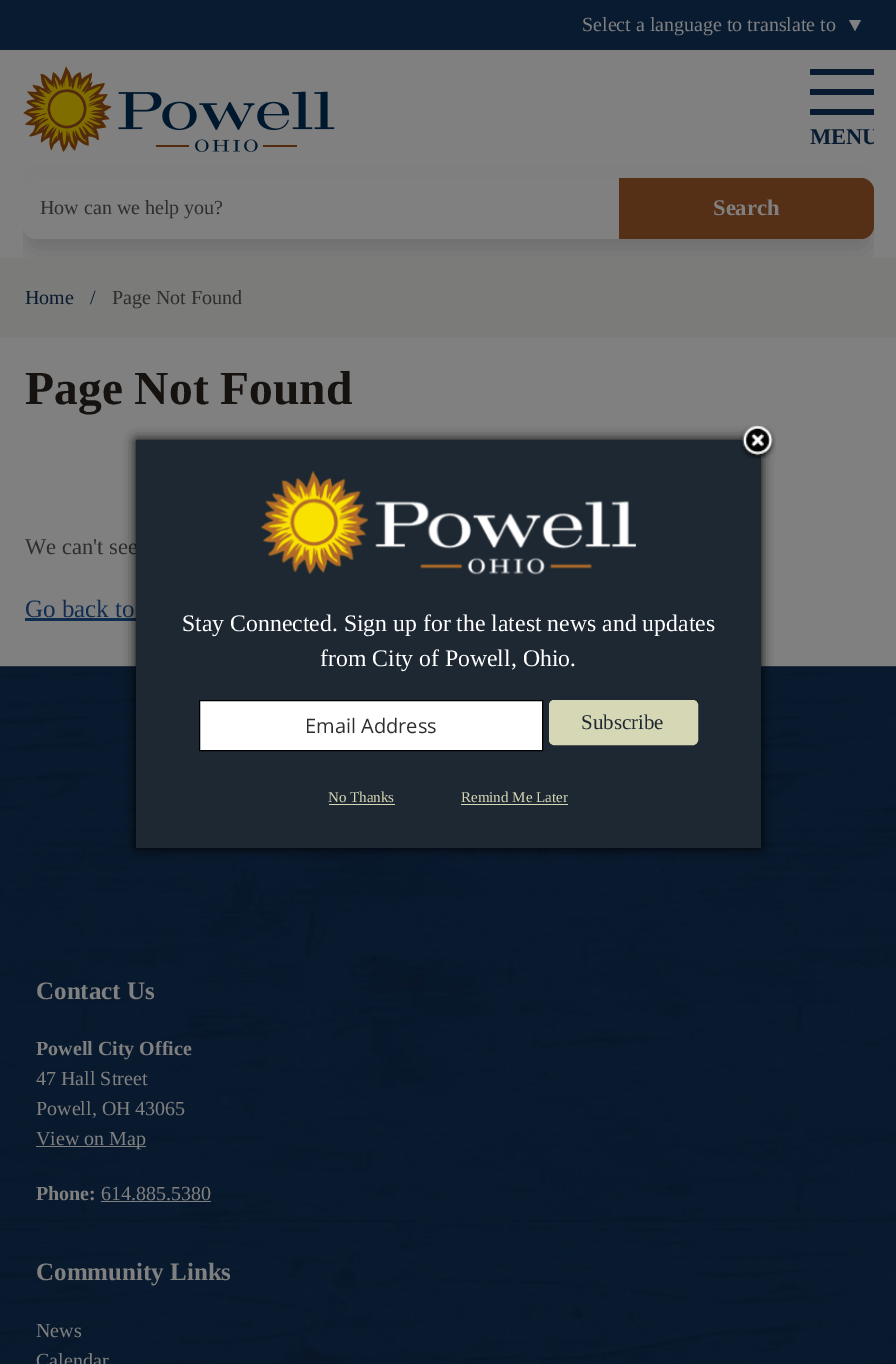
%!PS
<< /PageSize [896 1364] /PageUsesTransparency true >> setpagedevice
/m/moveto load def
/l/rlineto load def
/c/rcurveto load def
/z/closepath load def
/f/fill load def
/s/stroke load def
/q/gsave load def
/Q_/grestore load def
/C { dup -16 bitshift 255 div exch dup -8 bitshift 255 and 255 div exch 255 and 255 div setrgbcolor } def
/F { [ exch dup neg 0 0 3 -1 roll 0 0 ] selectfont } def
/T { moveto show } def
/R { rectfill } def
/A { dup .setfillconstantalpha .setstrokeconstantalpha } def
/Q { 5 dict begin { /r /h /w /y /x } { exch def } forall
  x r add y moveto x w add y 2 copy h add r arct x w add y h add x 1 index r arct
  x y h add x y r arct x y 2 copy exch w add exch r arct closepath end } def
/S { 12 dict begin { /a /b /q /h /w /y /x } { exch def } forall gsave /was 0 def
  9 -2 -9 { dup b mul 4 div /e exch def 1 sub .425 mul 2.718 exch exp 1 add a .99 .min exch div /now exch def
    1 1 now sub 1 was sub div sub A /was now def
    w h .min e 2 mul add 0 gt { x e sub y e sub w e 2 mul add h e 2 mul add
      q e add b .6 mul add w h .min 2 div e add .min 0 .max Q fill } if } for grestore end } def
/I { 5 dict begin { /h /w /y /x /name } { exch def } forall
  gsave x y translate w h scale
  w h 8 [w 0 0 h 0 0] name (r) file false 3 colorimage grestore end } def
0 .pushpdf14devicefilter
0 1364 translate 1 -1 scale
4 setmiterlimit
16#808080 C
0 0 896 1364 R
16#091B31 C
0 0 896 50 R
/LiberationSerif-Regular 20 F
16#808080 C
(Select a language to translate to) 582 31 T
849 20 m 12 0 l -6 11 l z f
(1.rgb) 23 66 312 86 I
16#091B31 C
810 89 64 6 R
810 69 64 6 R
810 109 64 6 R
q
23 50 851 208 rectclip
/LiberationSerif-Bold 22.5 F
(MENU) 810 144 T
Q_
q
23 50 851 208 rectclip
16#000000 C
23 193 851 61 13 12.5 .14 S
Q_
16#808080 C
36 178 m 583 0 l 0 61 l -583 0 l -7 0 -13 -6 -13 -13 c 0 -35 l 0 -7 6 -13 13 -13 c z f
16#2E2E2E C
(How can we help you?) 40 214 T
16#563016 C
619 178 m 242 0 l 7 0 13 6 13 13 c 0 35 l 0 7 -6 13 -13 13 c -242 0 l z f
/LiberationSerif-Bold 22.5 F
16#808080 C
(Search) 713 215 T
16#7B7B79 C
0 258 896 80 R
/LiberationSerif-Regular 20 F
16#091B31 C
(Home) 25 304 T
(/) 90 304 T
16#2E2E2E C
(Page Not Found) 112 304 T
/LiberationSerif-Bold 47.5 F
16#151210 C
(Page Not Found) 25 404 T
/LiberationSerif-Regular 22.5 F
16#2E2E2E C
(We can't see) 25 554 T
/LiberationSerif-Regular 25 F
16#102D50 C
(Go back to) 25 617 T
25 618 111 3 R
(2.rgb) 0 666 896 698 I
/LiberationSerif-Bold 25 F
16#808080 C
(Contact Us) 36 999 T
/LiberationSerif-Bold 20 F
(Powell City Office) 36 1055 T
/LiberationSerif-Regular 20 F
(47 Hall Street) 36 1085 T
(Powell, OH 43065) 36 1115 T
36 1146 110 1 R
(View on Map) 36 1145 T
/LiberationSerif-Bold 20 F
(Phone:) 36 1200 T
/LiberationSerif-Regular 20 F
(614.885.5380) 101 1200 T
101 1201 110 1 R
/LiberationSerif-Bold 25 F
(Community Links) 36 1280 T
/LiberationSerif-Regular 20 F
(News) 36 1337 T
(Calendar) 36 1367 T
16#000000 C
136 440 625 408 0 6 1 S
16#1E2832 C
136 440 625 408 R
(3.rgb) 740 425 36 34 I
(4.rgb) 261 471 375 104 I
/LiberationSerif-Regular 23.75 F
16#FFFFFF C
(Stay Connected. Sign up for the latest news and updates) 182 631 T
(from City of Powell, Ohio.) 320 666 T
199.5 700.5 m 343 0 l 0 50 l -343 0 l z q f Q_
16#000000 C
s
/OpenSans-Regular 20 F
16#2E2E2E C
(Email Address) 305 733 T
16#D6D7B5 C
549.5 700.5 148 44 4.5 Q q f Q_
s
/LiberationSerif-Regular 21 F
16#1E2832 C
(Subscribe) 581 729 T
/LiberationSerif-Regular 15 F
16#D6D7B5 C
(No Thanks) 328 802 T
329 804 66 1 R
(Remind Me Later) 461 802 T
461 804 107 1 R
.poppdf14devicefilter showpage
